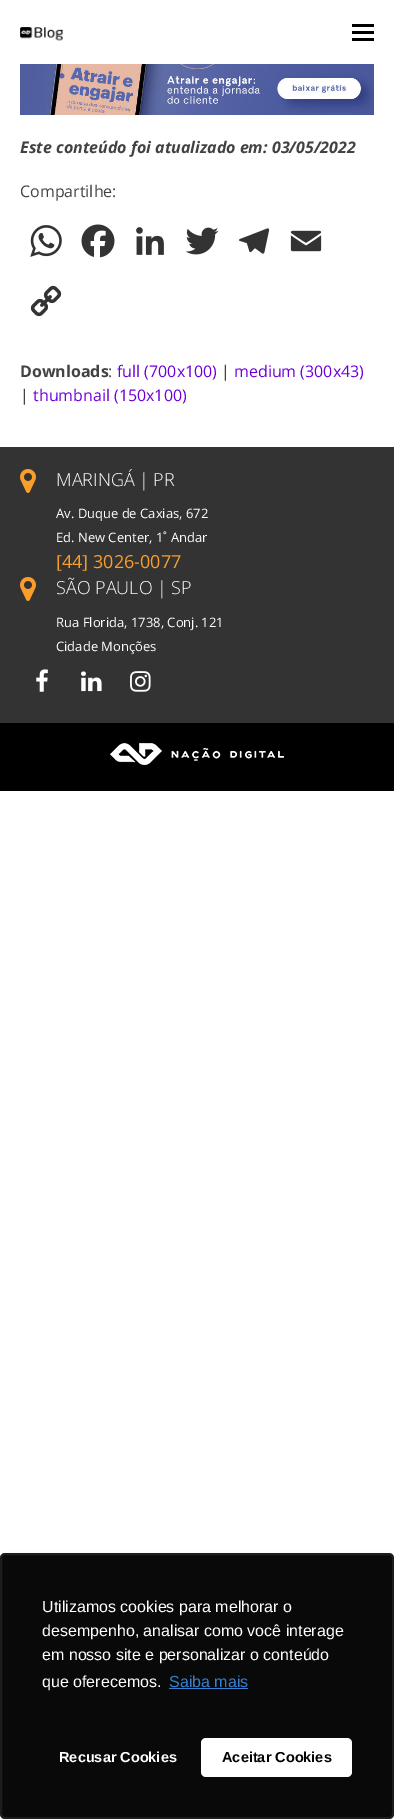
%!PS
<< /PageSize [394 1819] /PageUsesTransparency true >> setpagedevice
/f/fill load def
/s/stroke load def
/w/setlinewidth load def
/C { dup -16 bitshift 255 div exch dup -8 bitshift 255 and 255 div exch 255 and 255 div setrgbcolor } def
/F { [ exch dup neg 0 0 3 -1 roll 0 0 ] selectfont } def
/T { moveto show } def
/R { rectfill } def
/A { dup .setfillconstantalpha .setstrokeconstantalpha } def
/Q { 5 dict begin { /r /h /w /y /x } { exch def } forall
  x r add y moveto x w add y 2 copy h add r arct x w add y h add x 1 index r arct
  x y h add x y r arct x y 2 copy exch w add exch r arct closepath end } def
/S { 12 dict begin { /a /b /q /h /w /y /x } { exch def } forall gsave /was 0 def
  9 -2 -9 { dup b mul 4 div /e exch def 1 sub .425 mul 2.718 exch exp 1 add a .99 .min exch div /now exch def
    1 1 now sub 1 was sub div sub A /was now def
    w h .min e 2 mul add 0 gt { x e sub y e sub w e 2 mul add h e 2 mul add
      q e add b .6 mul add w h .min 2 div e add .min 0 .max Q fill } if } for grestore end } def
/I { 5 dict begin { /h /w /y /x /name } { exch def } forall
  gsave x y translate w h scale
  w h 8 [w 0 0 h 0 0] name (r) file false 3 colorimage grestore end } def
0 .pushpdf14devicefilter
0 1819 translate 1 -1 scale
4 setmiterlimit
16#FFFFFF C
0 0 394 1819 R
(1.rgb) 20 27 43 14 I
16#000000 C
352 31 22 3 R
352 24 22 3 R
352 38 22 3 R
(2.rgb) 20 64 354 51 I
/OpenSans-BoldItalic 16 F
16#424242 C
(Este conteúdo foi atualizado em: 03/05/2022) 20 153 T
/OpenSans-Regular 16 F
(Compartilhe:) 20 197 T
(3.rgb) 30 225 32 32 I
(4.rgb) 81 224 34 34 I
(5.rgb) 136 227 28 28 I
(6.rgb) 185 227 34 28 I
(7.rgb) 239 228 31 26 I
(8.rgb) 290 230 32 22 I
(9.rgb) 30 285 32 32 I
/OpenSans-Bold 16 F
(Downloads) 20 377 T
/OpenSans-Regular 16 F
(:) 108 377 T
16#6D00DA C
(full \(700x100\)) 117 377 T
16#424242 C
(|) 221 377 T
16#6D00DA C
(medium \(300x43\)) 234 377 T
16#424242 C
(|) 20 401 T
16#6D00DA C
(thumbnail \(150x100\)) 33 401 T
16#333333 C
0 447 394 276 R
(10.rgb) 20 469 16 24 I
/OpenSans-Light 18 F
16#FFFFFF C
(MARINGÁ | PR) 56 486 T
/OpenSans-Regular 13 F
(Av. Duque de Caxias, 672) 56 518 T
(Ed. New Center, 1˚ Andar) 56 542 T
/OpenSans-Regular 18 F
16#FA9D2B C
([44] 3026-0077) 56 568 T
(10.rgb) 20 577 16 24 I
/OpenSans-Light 18 F
16#FFFFFF C
(SÃO PAULO | SP) 56 594 T
/OpenSans-Regular 13 F
(Rua Florida, 1738, Conj. 121) 56 627 T
(Cidade Monções) 56 651 T
(11.rgb) 36 669 12 23 I
(12.rgb) 81 671 21 21 I
(13.rgb) 130 671 21 21 I
16#000000 C
0 723 394 68 R
(14.rgb) 110 743 174 22 I
16#636E7C C
1 1555 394 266 5 2 .1 S
16#090909 C
0 1553 394 266 5 Q f
0.2 A
16#636E7C C
2 w
1 1554 392 264 4 Q s
/LiberationSans-Regular 16 F
1 A
16#FFFFFF C
(Utilizamos cookies para melhorar o) 42 1612 T
(desempenho, analisar como você interage) 42 1636 T
(em nosso site e personalizar o conteúdo) 42 1660 T
(que oferecemos.) 42 1687 T
16#357FCE C
(Saiba mais) 169 1687 T
169 1688 79 1 R
/LiberationSans-Bold 14.5 F
16#FFFFFF C
(Recusar Cookies) 59 1762 T
201 1738 151 39 5 Q f
16#000000 C
(Aceitar Cookies) 222 1762 T
.poppdf14devicefilter showpage
